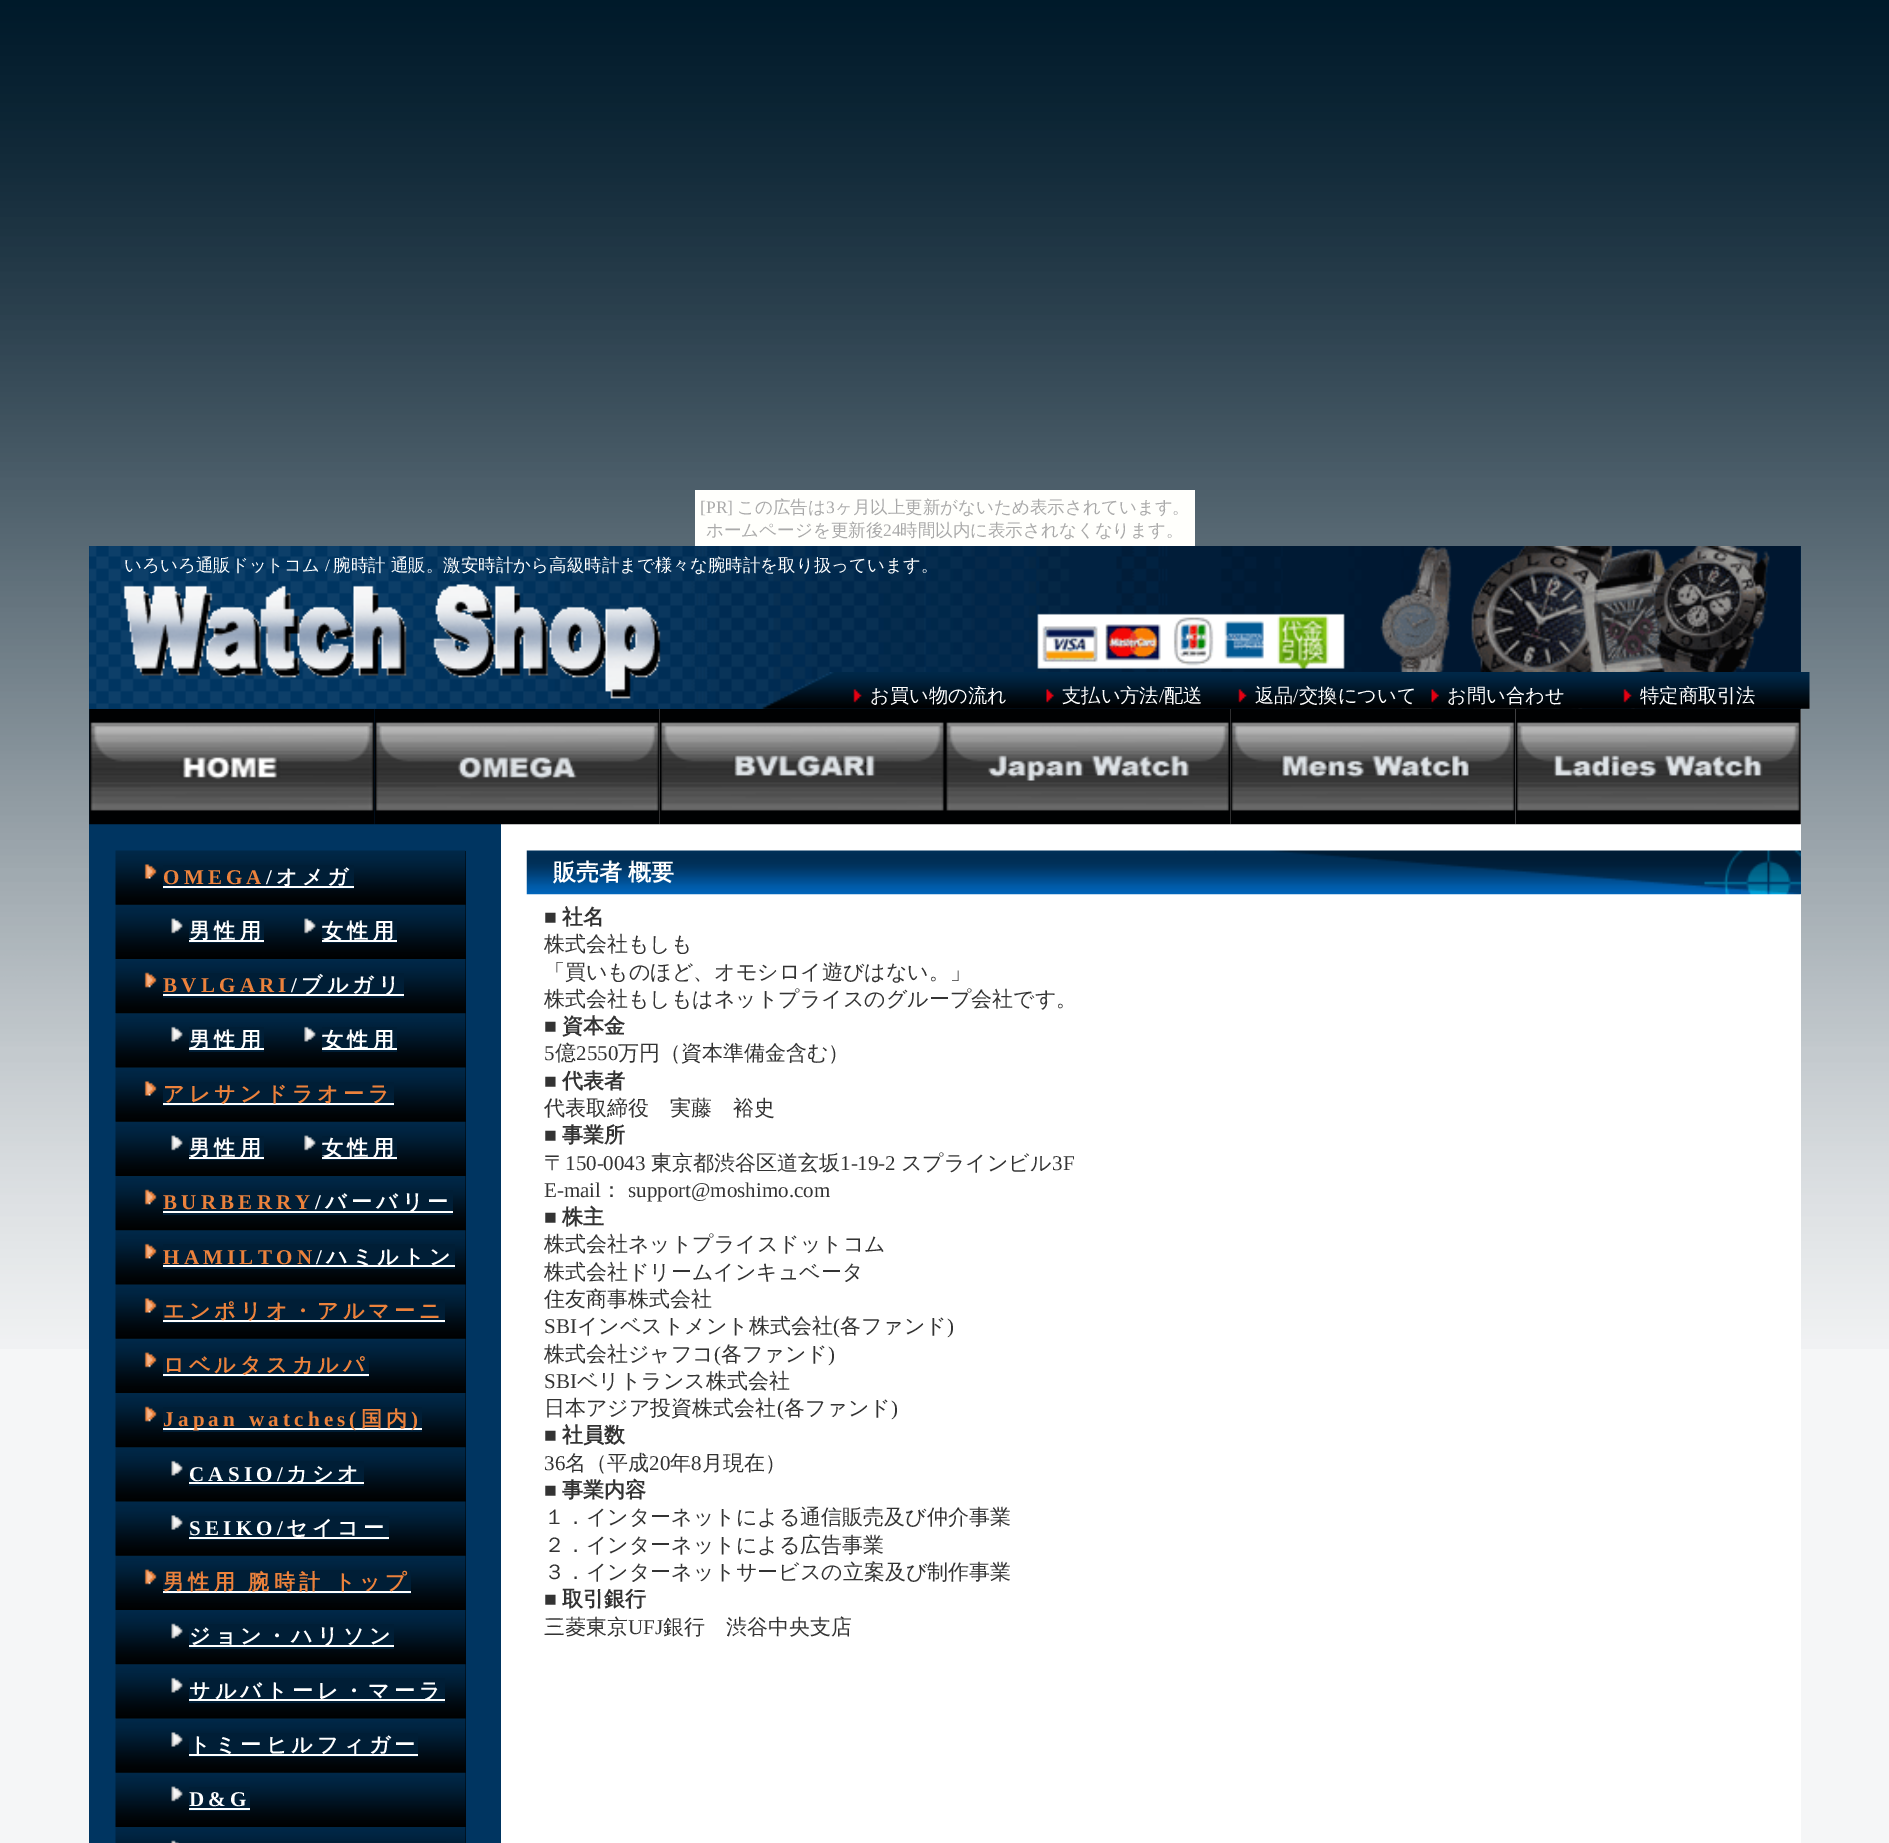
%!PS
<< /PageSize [1889 1843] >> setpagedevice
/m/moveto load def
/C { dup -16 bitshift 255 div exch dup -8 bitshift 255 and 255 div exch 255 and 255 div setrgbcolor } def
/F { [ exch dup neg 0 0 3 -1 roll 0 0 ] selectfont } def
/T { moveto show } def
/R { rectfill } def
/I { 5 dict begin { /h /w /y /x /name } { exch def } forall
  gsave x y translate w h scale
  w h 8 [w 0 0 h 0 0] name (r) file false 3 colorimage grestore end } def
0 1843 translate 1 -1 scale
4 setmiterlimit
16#F5F6F7 C
0 0 1889 1843 R
(1.rgb) 0 0 1889 1349 I
16#FFFFFC C
695 490 500 56 R
/LiberationSerif-Regular 17.5 F
16#AAAAAA C
([PR]) 700 513 T
/WenQuanYiZenHei-Medium 17.5 F
(この広告は) 737 513 T
/LiberationSerif-Regular 17.5 F
(3) 826 513 T
/WenQuanYiZenHei-Medium 17.5 F
(ヶ月以上更新がないため表示されています。) 835 513 T
(ホームページを更新後) 706 536 T
/LiberationSerif-Regular 17.5 F
(24) 883 536 T
/WenQuanYiZenHei-Medium 17.5 F
(時間以内に表示されなくなります。) 900 536 T
16#FFFFFF C
501 709 1300 1134 R
16#003561 C
89 709 412 1134 R
89 546 1712 163 R
(2.rgb) 89 546 1712 163 I
16#FFFFFF C
(いろいろ通販ドットコム) 124 571 T
/LiberationSerif-Regular 17.5 F
(/) 325 571 T
/WenQuanYiZenHei-Medium 17.5 F
(腕時計 通販。激安時計から高級時計まで様々な腕時計を取り扱っています。) 333 571 T
(3.rgb) 123 584 538 115 I
(4.rgb) 761 672 1049 37 I
(5.rgb) 853 689 9 14 I
/WenQuanYiZenHei-Medium 19.25 F
(お買い物の流れ) 870 702 T
(6.rgb) 1046 689 8 14 I
(支払い方法) 1062 702 T
/LiberationSerif-Regular 19.25 F
(/) 1159 702 T
/WenQuanYiZenHei-Medium 19.25 F
(配送) 1164 702 T
(7.rgb) 1238 689 9 14 I
(返品) 1255 702 T
/LiberationSerif-Regular 19.25 F
(/) 1293 702 T
/WenQuanYiZenHei-Medium 19.25 F
(交換について) 1299 702 T
(8.rgb) 1431 689 8 14 I
(お問い合わせ) 1447 702 T
(5.rgb) 1623 689 9 14 I
(特定商取引法) 1640 702 T
(9.rgb) 89 709 286 116 I
(10.rgb) 374 709 286 116 I
(11.rgb) 659 709 286 116 I
(12.rgb) 945 709 286 116 I
(13.rgb) 1230 709 286 116 I
(14.rgb) 1515 709 286 116 I
16#000203 C
116 851 350 54 R
(15.rgb) 115 850 351 55 I
(16.rgb) 144 864 13 15 I
16#001E36 C
163 865 191 24 R
/LiberationSerif-Bold 21 F
16#EC823C C
163 884 m 4.25 0 (OMEGA) ashow
16#FFFFFF C
163 886 191 2 R
266 884 m 4.25 0 (/) ashow
/WenQuanYiZenHei-Bold 21 F
276 884 m 4.25 0 (オメガ) ashow
16#000203 C
465 905 1 108 R
(17.rgb) 115 904 351 55 I
(18.rgb) 171 918 12 16 I
16#001E36 C
189 919 75 24 R
16#FFFFFF C
189 940 75 2 R
189 938 m 4.25 0 (男性用) ashow
(19.rgb) 304 918 12 16 I
16#001E36 C
322 919 75 24 R
16#FFFFFF C
322 940 75 2 R
322 938 m 4.25 0 (女性用) ashow
(20.rgb) 115 959 351 55 I
(21.rgb) 144 972 13 16 I
16#001E36 C
163 973 241 25 R
/LiberationSerif-Bold 21 F
16#EC823C C
163 992 m 4.25 0 (BVLGARI) ashow
16#FFFFFF C
163 994 241 2 R
291 992 m 4.25 0 (/) ashow
/WenQuanYiZenHei-Bold 21 F
301 992 m 4.25 0 (ブルガリ) ashow
16#000203 C
116 1013 350 109 R
(22.rgb) 115 1013 351 55 I
(23.rgb) 171 1026 12 16 I
16#001E36 C
189 1027 75 25 R
16#FFFFFF C
189 1048 75 2 R
189 1047 m 4.25 0 (男性用) ashow
(24.rgb) 304 1026 12 16 I
16#001E36 C
322 1027 75 25 R
16#FFFFFF C
322 1048 75 2 R
322 1047 m 4.25 0 (女性用) ashow
(25.rgb) 115 1067 351 55 I
(26.rgb) 144 1081 13 15 I
16#001E36 C
163 1082 231 24 R
16#FFFFFF C
163 1103 231 2 R
16#EC823C C
163 1101 m 4.25 0 (アレサンドラオーラ) ashow
16#000203 C
465 1122 1 108 R
(27.rgb) 115 1121 351 55 I
(28.rgb) 171 1135 12 16 I
16#001E36 C
189 1136 75 24 R
16#FFFFFF C
189 1157 75 2 R
189 1155 m 4.25 0 (男性用) ashow
(29.rgb) 304 1135 12 16 I
16#001E36 C
322 1136 75 24 R
16#FFFFFF C
322 1157 75 2 R
322 1155 m 4.25 0 (女性用) ashow
(30.rgb) 115 1176 351 55 I
(31.rgb) 144 1189 13 16 I
16#001E36 C
163 1190 290 25 R
/LiberationSerif-Bold 21 F
16#EC823C C
163 1209 m 4.25 0 (BURBERRY) ashow
16#FFFFFF C
163 1211 290 2 R
315 1209 m 4.25 0 (/) ashow
/WenQuanYiZenHei-Bold 21 F
325 1209 m 4.25 0 (バーバリー) ashow
16#000203 C
116 1230 350 109 R
(32.rgb) 115 1230 351 55 I
(33.rgb) 144 1243 13 16 I
16#001E36 C
163 1244 292 25 R
/LiberationSerif-Bold 21 F
16#EC823C C
163 1264 m 4.25 0 (HAMILTON) ashow
16#FFFFFF C
163 1265 292 2 R
316 1264 m 4.25 0 (/) ashow
/WenQuanYiZenHei-Bold 21 F
326 1264 m 4.25 0 (ハミルトン) ashow
(34.rgb) 115 1284 351 55 I
(26.rgb) 144 1298 13 15 I
16#001E36 C
163 1299 282 24 R
16#FFFFFF C
163 1320 282 2 R
16#EC823C C
163 1318 m 4.25 0 (エンポリオ・アルマーニ) ashow
16#000203 C
465 1339 1 108 R
(35.rgb) 115 1338 351 55 I
(36.rgb) 144 1352 13 16 I
16#001E36 C
163 1353 206 24 R
16#FFFFFF C
163 1374 206 2 R
16#EC823C C
163 1372 m 4.25 0 (ロベルタスカルパ) ashow
(37.rgb) 115 1393 351 55 I
(21.rgb) 144 1406 13 16 I
16#001E36 C
163 1407 259 25 R
16#FFFFFF C
163 1428 259 2 R
/LiberationSerif-Bold 21 F
16#EC823C C
163 1426 m 4.25 0 (Japan watches\() ashow
/WenQuanYiZenHei-Bold 21 F
361 1426 m 4.25 0 (国内) ashow
/LiberationSerif-Bold 21 F
411 1426 m 4.25 0 (\)) ashow
16#000203 C
116 1447 350 109 R
(38.rgb) 115 1447 351 55 I
(39.rgb) 171 1460 12 16 I
16#001E36 C
189 1461 175 25 R
16#FFFFFF C
189 1481 m 4.25 0 (CASIO/) ashow
189 1482 175 2 R
/WenQuanYiZenHei-Bold 21 F
286 1481 m 4.25 0 (カシオ) ashow
(40.rgb) 115 1501 351 55 I
(41.rgb) 171 1515 12 15 I
16#001E36 C
189 1516 200 24 R
/LiberationSerif-Bold 21 F
16#FFFFFF C
189 1535 m 4.25 0 (SEIKO/) ashow
189 1537 200 2 R
/WenQuanYiZenHei-Bold 21 F
286 1535 m 4.25 0 (セイコー) ashow
16#000203 C
465 1556 1 108 R
(42.rgb) 115 1555 351 55 I
(36.rgb) 144 1569 13 16 I
16#001E36 C
163 1570 248 24 R
16#FFFFFF C
163 1591 248 2 R
16#EC823C C
163 1589 m -1 0 32 4.25 0 (男性用 腕時計 トップ) awidthshow
(43.rgb) 115 1610 351 55 I
(44.rgb) 171 1623 12 16 I
16#001E36 C
189 1624 205 25 R
16#FFFFFF C
189 1645 205 2 R
189 1643 m 4.25 0 (ジョン・ハリソン) ashow
16#000203 C
116 1664 350 109 R
(45.rgb) 115 1664 351 55 I
(23.rgb) 171 1677 12 16 I
16#001E36 C
189 1678 256 25 R
16#FFFFFF C
189 1699 256 2 R
189 1698 m 4.25 0 (サルバトーレ・マーラ) ashow
(46.rgb) 115 1718 351 55 I
(47.rgb) 171 1732 12 15 I
16#001E36 C
189 1733 229 24 R
16#FFFFFF C
189 1754 229 2 R
189 1752 m 4.25 0 (トミーヒルフィガー) ashow
16#000203 C
465 1773 1 70 R
(48.rgb) 115 1772 351 55 I
(28.rgb) 171 1786 12 16 I
16#001E36 C
189 1787 61 24 R
/LiberationSerif-Bold 21 F
16#FFFFFF C
189 1806 m 4.25 0 (D&G) ashow
189 1808 61 2 R
(49.rgb) 115 1827 351 16 I
(50.rgb) 171 1840 8 3 I
16#001E36 C
189 1841 257 1 R
(51.rgb) 526 850 1275 45 I
/WenQuanYiZenHei-Bold 23 F
16#FFFFFF C
553 880 m -1 0 32 (販売者 概要) widthshow
/LiberationSerif-Bold 21 F
16#333333 C
(■) 544 924 T
/WenQuanYiZenHei-Bold 21 F
(社名) 562 924 T
/WenQuanYiZenHei-Medium 21 F
(株式会社もしも) 544 951 T
(「買いものほど、オモシロイ遊びはない。」) 544 979 T
(株式会社もしもはネットプライスのグループ会社です。) 544 1006 T
/LiberationSerif-Bold 21 F
(■) 544 1033 T
/WenQuanYiZenHei-Bold 21 F
(資本金) 562 1033 T
/LiberationSerif-Regular 21 F
(5) 544 1060 T
/WenQuanYiZenHei-Medium 21 F
(億) 555 1060 T
/LiberationSerif-Regular 21 F
(2550) 576 1060 T
/WenQuanYiZenHei-Medium 21 F
(万円（資本準備金含む）) 618 1060 T
/LiberationSerif-Bold 21 F
(■) 544 1088 T
/WenQuanYiZenHei-Bold 21 F
(代表者) 562 1088 T
/WenQuanYiZenHei-Medium 21 F
(代表取締役　実藤　裕史) 544 1115 T
/LiberationSerif-Bold 21 F
(■) 544 1142 T
/WenQuanYiZenHei-Bold 21 F
(事業所) 562 1142 T
/WenQuanYiZenHei-Medium 21 F
(〒) 544 1170 T
/LiberationSerif-Regular 21 F
(150-0043) 565 1170 T
/WenQuanYiZenHei-Medium 21 F
(東京都渋谷区道玄坂) 651 1170 T
/LiberationSerif-Regular 21 F
(1-19-2) 840 1170 T
/WenQuanYiZenHei-Medium 21 F
(スプラインビル) 901 1170 T
/LiberationSerif-Regular 21 F
(3F) 1052 1170 T
(E-mail) 544 1197 T
/WenQuanYiZenHei-Medium 21 F
(：) 601 1197 T
/LiberationSerif-Regular 21 F
(support@moshimo.com) 628 1197 T
/LiberationSerif-Bold 21 F
(■) 544 1224 T
/WenQuanYiZenHei-Bold 21 F
(株主) 562 1224 T
/WenQuanYiZenHei-Medium 21 F
(株式会社ネットプライスドットコム) 544 1251 T
(株式会社ドリームインキュベータ) 544 1279 T
(住友商事株式会社) 544 1306 T
/LiberationSerif-Regular 21 F
(SBI) 544 1333 T
/WenQuanYiZenHei-Medium 21 F
(インベストメント株式会社) 577 1333 T
/LiberationSerif-Regular 21 F
(\() 833 1333 T
/WenQuanYiZenHei-Medium 21 F
(各ファンド) 840 1333 T
/LiberationSerif-Regular 21 F
(\)) 947 1333 T
/WenQuanYiZenHei-Medium 21 F
(株式会社ジャフコ) 544 1361 T
/LiberationSerif-Regular 21 F
(\() 714 1361 T
/WenQuanYiZenHei-Medium 21 F
(各ファンド) 721 1361 T
/LiberationSerif-Regular 21 F
(\)) 828 1361 T
(SBI) 544 1388 T
/WenQuanYiZenHei-Medium 21 F
(ベリトランス株式会社) 577 1388 T
(日本アジア投資株式会社) 544 1415 T
/LiberationSerif-Regular 21 F
(\() 777 1415 T
/WenQuanYiZenHei-Medium 21 F
(各ファンド) 784 1415 T
/LiberationSerif-Regular 21 F
(\)) 891 1415 T
/LiberationSerif-Bold 21 F
(■) 544 1442 T
/WenQuanYiZenHei-Bold 21 F
(社員数) 562 1442 T
/LiberationSerif-Regular 21 F
(36) 544 1470 T
/WenQuanYiZenHei-Medium 21 F
(名（平成) 565 1470 T
/LiberationSerif-Regular 21 F
(20) 649 1470 T
/WenQuanYiZenHei-Medium 21 F
(年) 670 1470 T
/LiberationSerif-Regular 21 F
(8) 691 1470 T
/WenQuanYiZenHei-Medium 21 F
(月現在）) 702 1470 T
/LiberationSerif-Bold 21 F
(■) 544 1497 T
/WenQuanYiZenHei-Bold 21 F
(事業内容) 562 1497 T
/WenQuanYiZenHei-Medium 21 F
(１．インターネットによる通信販売及び仲介事業) 544 1524 T
(２．インターネットによる広告事業) 544 1552 T
(３．インターネットサービスの立案及び制作事業) 544 1579 T
/LiberationSerif-Bold 21 F
(■) 544 1606 T
/WenQuanYiZenHei-Bold 21 F
(取引銀行) 562 1606 T
/WenQuanYiZenHei-Medium 21 F
(三菱東京) 544 1634 T
/LiberationSerif-Regular 21 F
(UFJ) 628 1634 T
/WenQuanYiZenHei-Medium 21 F
(銀行　渋谷中央支店) 663 1634 T
showpage
